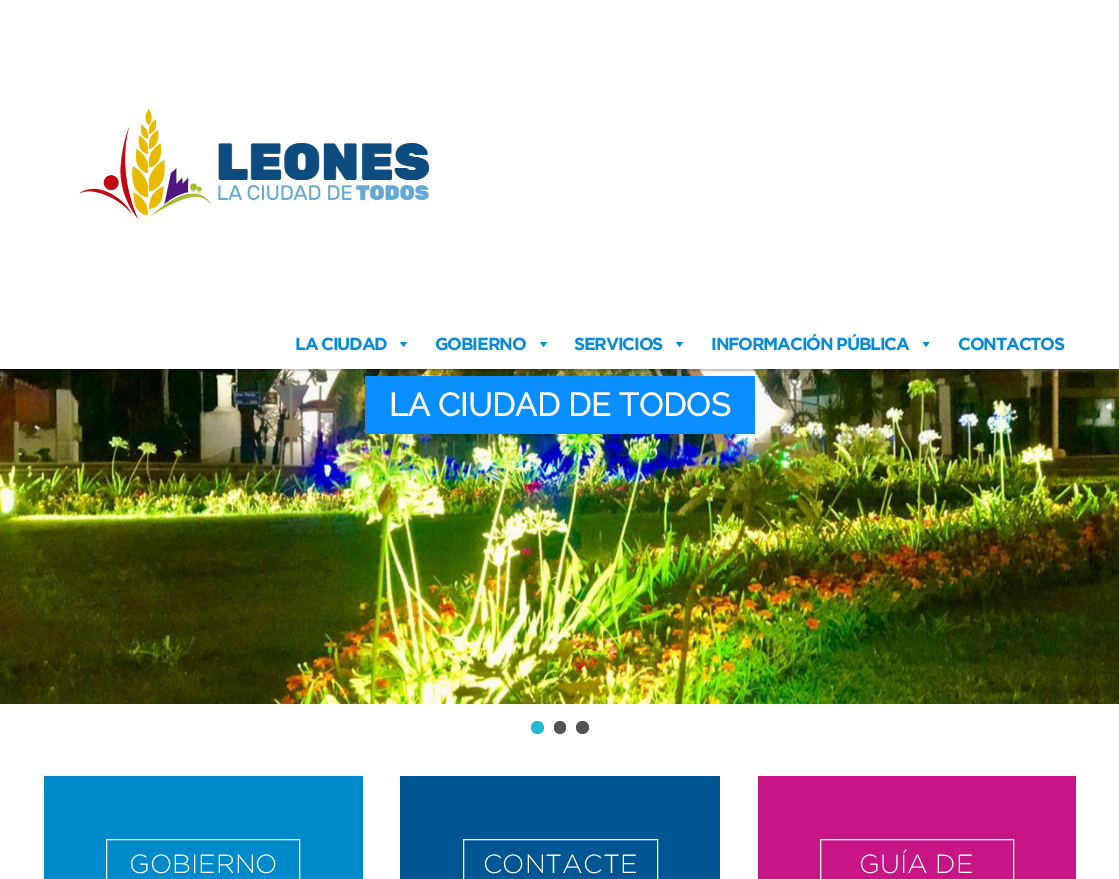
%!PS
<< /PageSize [1119 879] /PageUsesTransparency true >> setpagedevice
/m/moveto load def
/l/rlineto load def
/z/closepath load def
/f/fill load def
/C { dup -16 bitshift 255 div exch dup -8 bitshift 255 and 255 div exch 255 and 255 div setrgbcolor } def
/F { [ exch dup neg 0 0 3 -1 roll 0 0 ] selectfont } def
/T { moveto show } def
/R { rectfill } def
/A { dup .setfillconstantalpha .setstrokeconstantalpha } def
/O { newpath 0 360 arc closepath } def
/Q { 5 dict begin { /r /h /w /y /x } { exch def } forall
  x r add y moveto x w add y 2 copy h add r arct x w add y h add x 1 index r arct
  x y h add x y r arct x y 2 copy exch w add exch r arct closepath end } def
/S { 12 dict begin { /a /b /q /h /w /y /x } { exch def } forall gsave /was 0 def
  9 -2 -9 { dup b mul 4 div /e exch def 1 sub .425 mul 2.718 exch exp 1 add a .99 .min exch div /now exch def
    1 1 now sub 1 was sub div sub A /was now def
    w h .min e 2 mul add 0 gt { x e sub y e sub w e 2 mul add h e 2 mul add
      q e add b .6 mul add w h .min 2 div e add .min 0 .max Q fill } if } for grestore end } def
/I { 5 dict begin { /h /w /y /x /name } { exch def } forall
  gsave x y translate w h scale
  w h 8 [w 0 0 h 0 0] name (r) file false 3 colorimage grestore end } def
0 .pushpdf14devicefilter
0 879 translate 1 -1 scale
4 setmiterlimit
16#FFFFFF C
0 0 1119 879 R
(2.rgb) 0 369 1119 335 I
16#000000 C
-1 0 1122 371 0 .5 .2 S
16#FFFFFF C
0 0 1119 369 R
(1.rgb) 79 108 351 111 I
/Gotham-Bold 17.5 F
16#098CD5 C
295 350 m -1.25 0 (LA CIUDAD) ashow
407 342 m -3.5 5 l -3.5 -5 l z f
435 350 m -1.25 0 (GOBIERNO) ashow
547 342 m -3.5 5 l -3.5 -5 l z f
574 350 m -1.25 0 (SERVICIOS) ashow
683 342 m -3.5 5 l -3.5 -5 l z f
711 350 m -1.25 0 (INFORMACIÓN PÚBLICA) ashow
929.5 342 m -3.5 5 l -3.5 -5 l z f
958 350 m -1.25 0 (CONTACTOS) ashow
16#088EFF C
365 376 390 58 R
/Raleway-Bold 32.25 F
16#FFFFFF C
(LA CIUDAD DE TODOS) 389 416 T
16#21BBD7 C
537.5 727.5 6.5 O f
16#545454 C
554 721 12 13 6 Q f
582.5 727.5 6.5 O f
16#008ACB C
44 776 319 103 R
16#FFFFFF C
106.5 839.5 193 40 rectstroke
/Gotham-Light 26.25 F
(GOBIERNO) 129 873 T
16#005693 C
400 776 320 103 R
16#FFFFFF C
463.5 839.5 194 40 rectstroke
(CONTACTE) 483 873 T
16#C71585 C
758 776 318 103 R
16#FFFFFF C
820.5 839.5 193 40 rectstroke
(GUÍA DE) 859 873 T
.poppdf14devicefilter showpage
